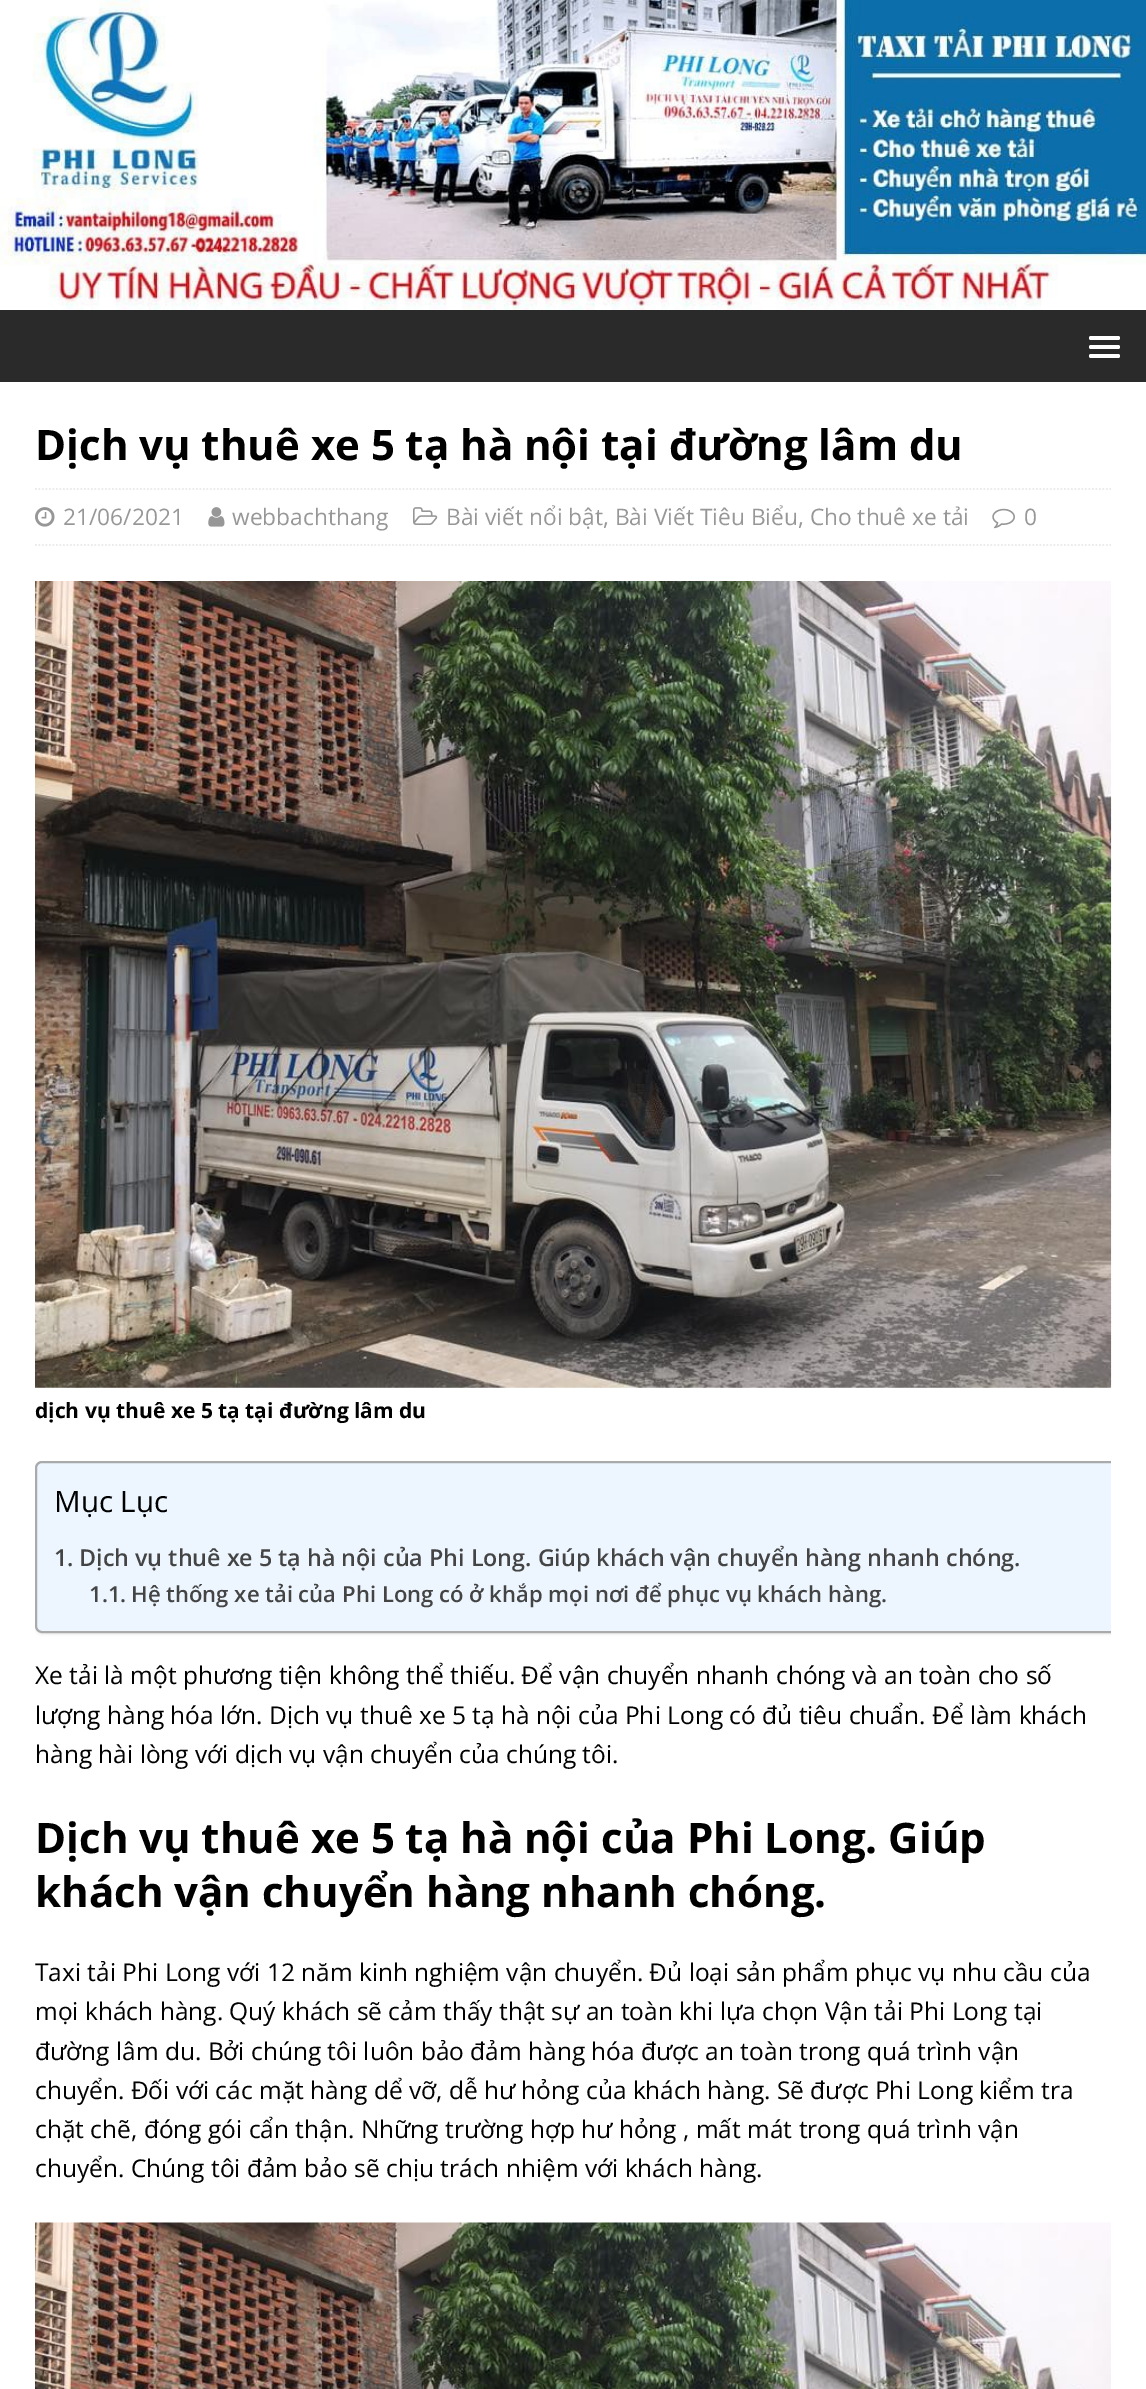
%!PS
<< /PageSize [1146 2389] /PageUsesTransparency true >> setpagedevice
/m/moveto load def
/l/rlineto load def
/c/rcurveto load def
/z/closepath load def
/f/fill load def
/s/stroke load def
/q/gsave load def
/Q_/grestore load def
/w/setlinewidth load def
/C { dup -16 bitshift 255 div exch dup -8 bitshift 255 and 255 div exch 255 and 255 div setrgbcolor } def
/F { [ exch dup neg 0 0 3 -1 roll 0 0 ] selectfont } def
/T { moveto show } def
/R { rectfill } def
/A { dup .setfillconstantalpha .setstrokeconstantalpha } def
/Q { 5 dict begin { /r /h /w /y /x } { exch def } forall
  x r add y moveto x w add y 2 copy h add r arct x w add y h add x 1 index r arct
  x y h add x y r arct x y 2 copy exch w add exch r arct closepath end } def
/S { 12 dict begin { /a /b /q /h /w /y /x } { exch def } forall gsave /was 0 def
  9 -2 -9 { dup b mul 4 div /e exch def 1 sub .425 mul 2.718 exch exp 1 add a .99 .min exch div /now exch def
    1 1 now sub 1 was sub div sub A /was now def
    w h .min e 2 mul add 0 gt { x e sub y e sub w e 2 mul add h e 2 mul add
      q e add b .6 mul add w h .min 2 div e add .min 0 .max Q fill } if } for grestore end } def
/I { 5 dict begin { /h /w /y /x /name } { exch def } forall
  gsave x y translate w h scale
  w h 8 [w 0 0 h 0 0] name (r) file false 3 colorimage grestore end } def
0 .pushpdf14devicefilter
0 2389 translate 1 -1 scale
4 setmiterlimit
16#FFFFFF C
0 0 1146 2389 R
(1.rgb) 0 0 1146 310 I
16#2A2A2A C
0 310 1146 72 R
16#FFFFFF C
1089 336 31 4 2 Q f
1089 345 31 4 2 Q f
1089 354 31 4 2 Q f
/OpenSans-Bold 42 F
16#000000 C
(Dịch vụ thuê xe 5 tạ hà nội tại đường lâm du) 35 460 T
16#EBEBEB C
1.8 w
[1.75 1.75] 0 setdash
35 489 m 1076 0 l s
35 545 m 1076 0 l s
(2.rgb) 35 507 20 20 I
/OpenSans-Regular 22.75 F
16#979797 C
(21/06/2021) 63 525 T
(3.rgb) 208 507 17 20 I
(webbachthang) 232 525 T
(4.rgb) 413 507 25 18 I
(Bài viết nổi bật, Bài Viết Tiêu Biểu, Cho thuê xe tải) 446 525 T
(5.rgb) 992 508 23 21 I
(0) 1024 525 T
(6.rgb) 35 581 1077 807 I
/OpenSans-Bold 21 F
16#000000 C
(dịch vụ thuê xe 5 tạ tại đường lâm du) 35 1418 T
q
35 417 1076 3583 rectclip
35 1463 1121 172 7 1 .05 S
Q_
16#EDF6FF C
42 1461 m 1069 0 l 0 172 l -1069 0 l -4 0 -7 -3 -7 -7 c 0 -158 l 0 -4 3 -7 7 -7 c z f
q
35 417 1076 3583 rectclip
16#AAAAAA C
2 w
[] 0 setdash
36 1462 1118 170 6 Q s
Q_
/OpenSans-Regular 29.5 F
16#000000 C
(Mục Lục) 54 1512 T
/OpenSans-SemiBold 23.3 F
16#444444 C
(1.) 54 1566 T
(Dịch vụ thuê xe 5 tạ hà nội của Phi Long. Giúp khách vận chuyển hàng nhanh chóng.) 79 1566 T
/OpenSans-SemiBold 22.1 F
(1.1.) 89 1602 T
(Hệ thống xe tải của Phi Long có ở khắp mọi nơi để phục vụ khách hàng.) 131 1602 T
/OpenSans-Regular 24.5 F
16#000000 C
(Xe tải là một phương tiện không thể thiếu. Để vận chuyển nhanh chóng và an toàn cho số) 35 1684 T
(lượng hàng hóa lớn. Dịch vụ thuê xe 5 tạ hà nội của Phi Long có đủ tiêu chuẩn. Để làm khách) 35 1724 T
(hàng hài lòng với dịch vụ vận chuyển của chúng tôi.) 35 1763 T
/OpenSans-Bold 42 F
(Dịch vụ thuê xe 5 tạ hà nội của Phi Long. Giúp) 35 1853 T
(khách vận chuyển hàng nhanh chóng.) 35 1907 T
/OpenSans-Regular 24.5 F
(Taxi tải Phi Long với 12 năm kinh nghiệm vận chuyển. Đủ loại sản phẩm phục vụ nhu cầu của) 35 1981 T
(mọi khách hàng. Quý khách sẽ cảm thấy thật sự an toàn khi lựa chọn Vận tải Phi Long tại) 35 2020 T
(đường lâm du. Bởi chúng tôi luôn bảo đảm hàng hóa được an toàn trong quá trình vận) 35 2060 T
(chuyển. Đối với các mặt hàng dể vỡ, dễ hư hỏng của khách hàng. Sẽ được Phi Long kiểm tra) 35 2099 T
(chặt chẽ, đóng gói cẩn thận. Những trường hợp hư hỏng , mất mát trong quá trình vận) 35 2138 T
(chuyển. Chúng tôi đảm bảo sẽ chịu trách nhiệm với khách hàng.) 35 2177 T
(7.rgb) 35 2222 1076 167 I
.poppdf14devicefilter showpage
